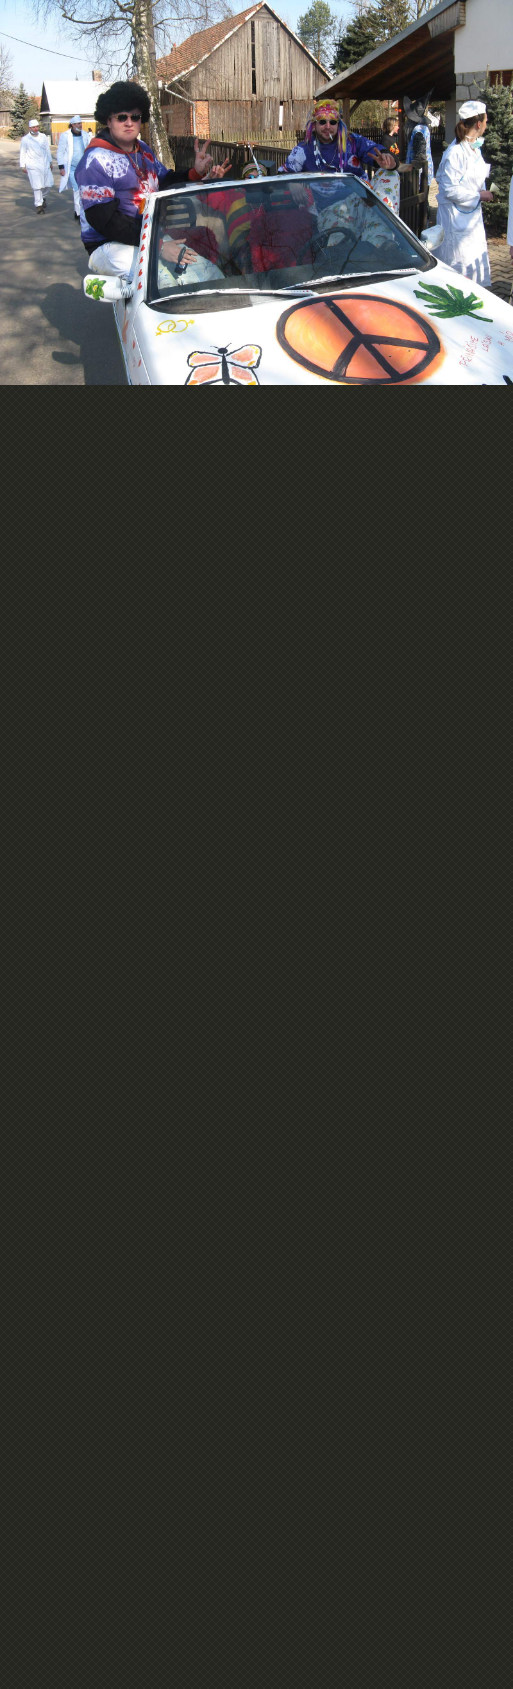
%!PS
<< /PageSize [513 1689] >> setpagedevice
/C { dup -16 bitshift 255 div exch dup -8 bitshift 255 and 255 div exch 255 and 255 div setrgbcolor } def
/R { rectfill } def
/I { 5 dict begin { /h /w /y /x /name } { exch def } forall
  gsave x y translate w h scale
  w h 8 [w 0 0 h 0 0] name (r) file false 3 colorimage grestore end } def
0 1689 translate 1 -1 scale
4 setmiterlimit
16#25251F C
0 0 513 1689 R
(1.rgb) 0 385 513 1304 I
(2.rgb) 0 0 513 385 I
showpage
